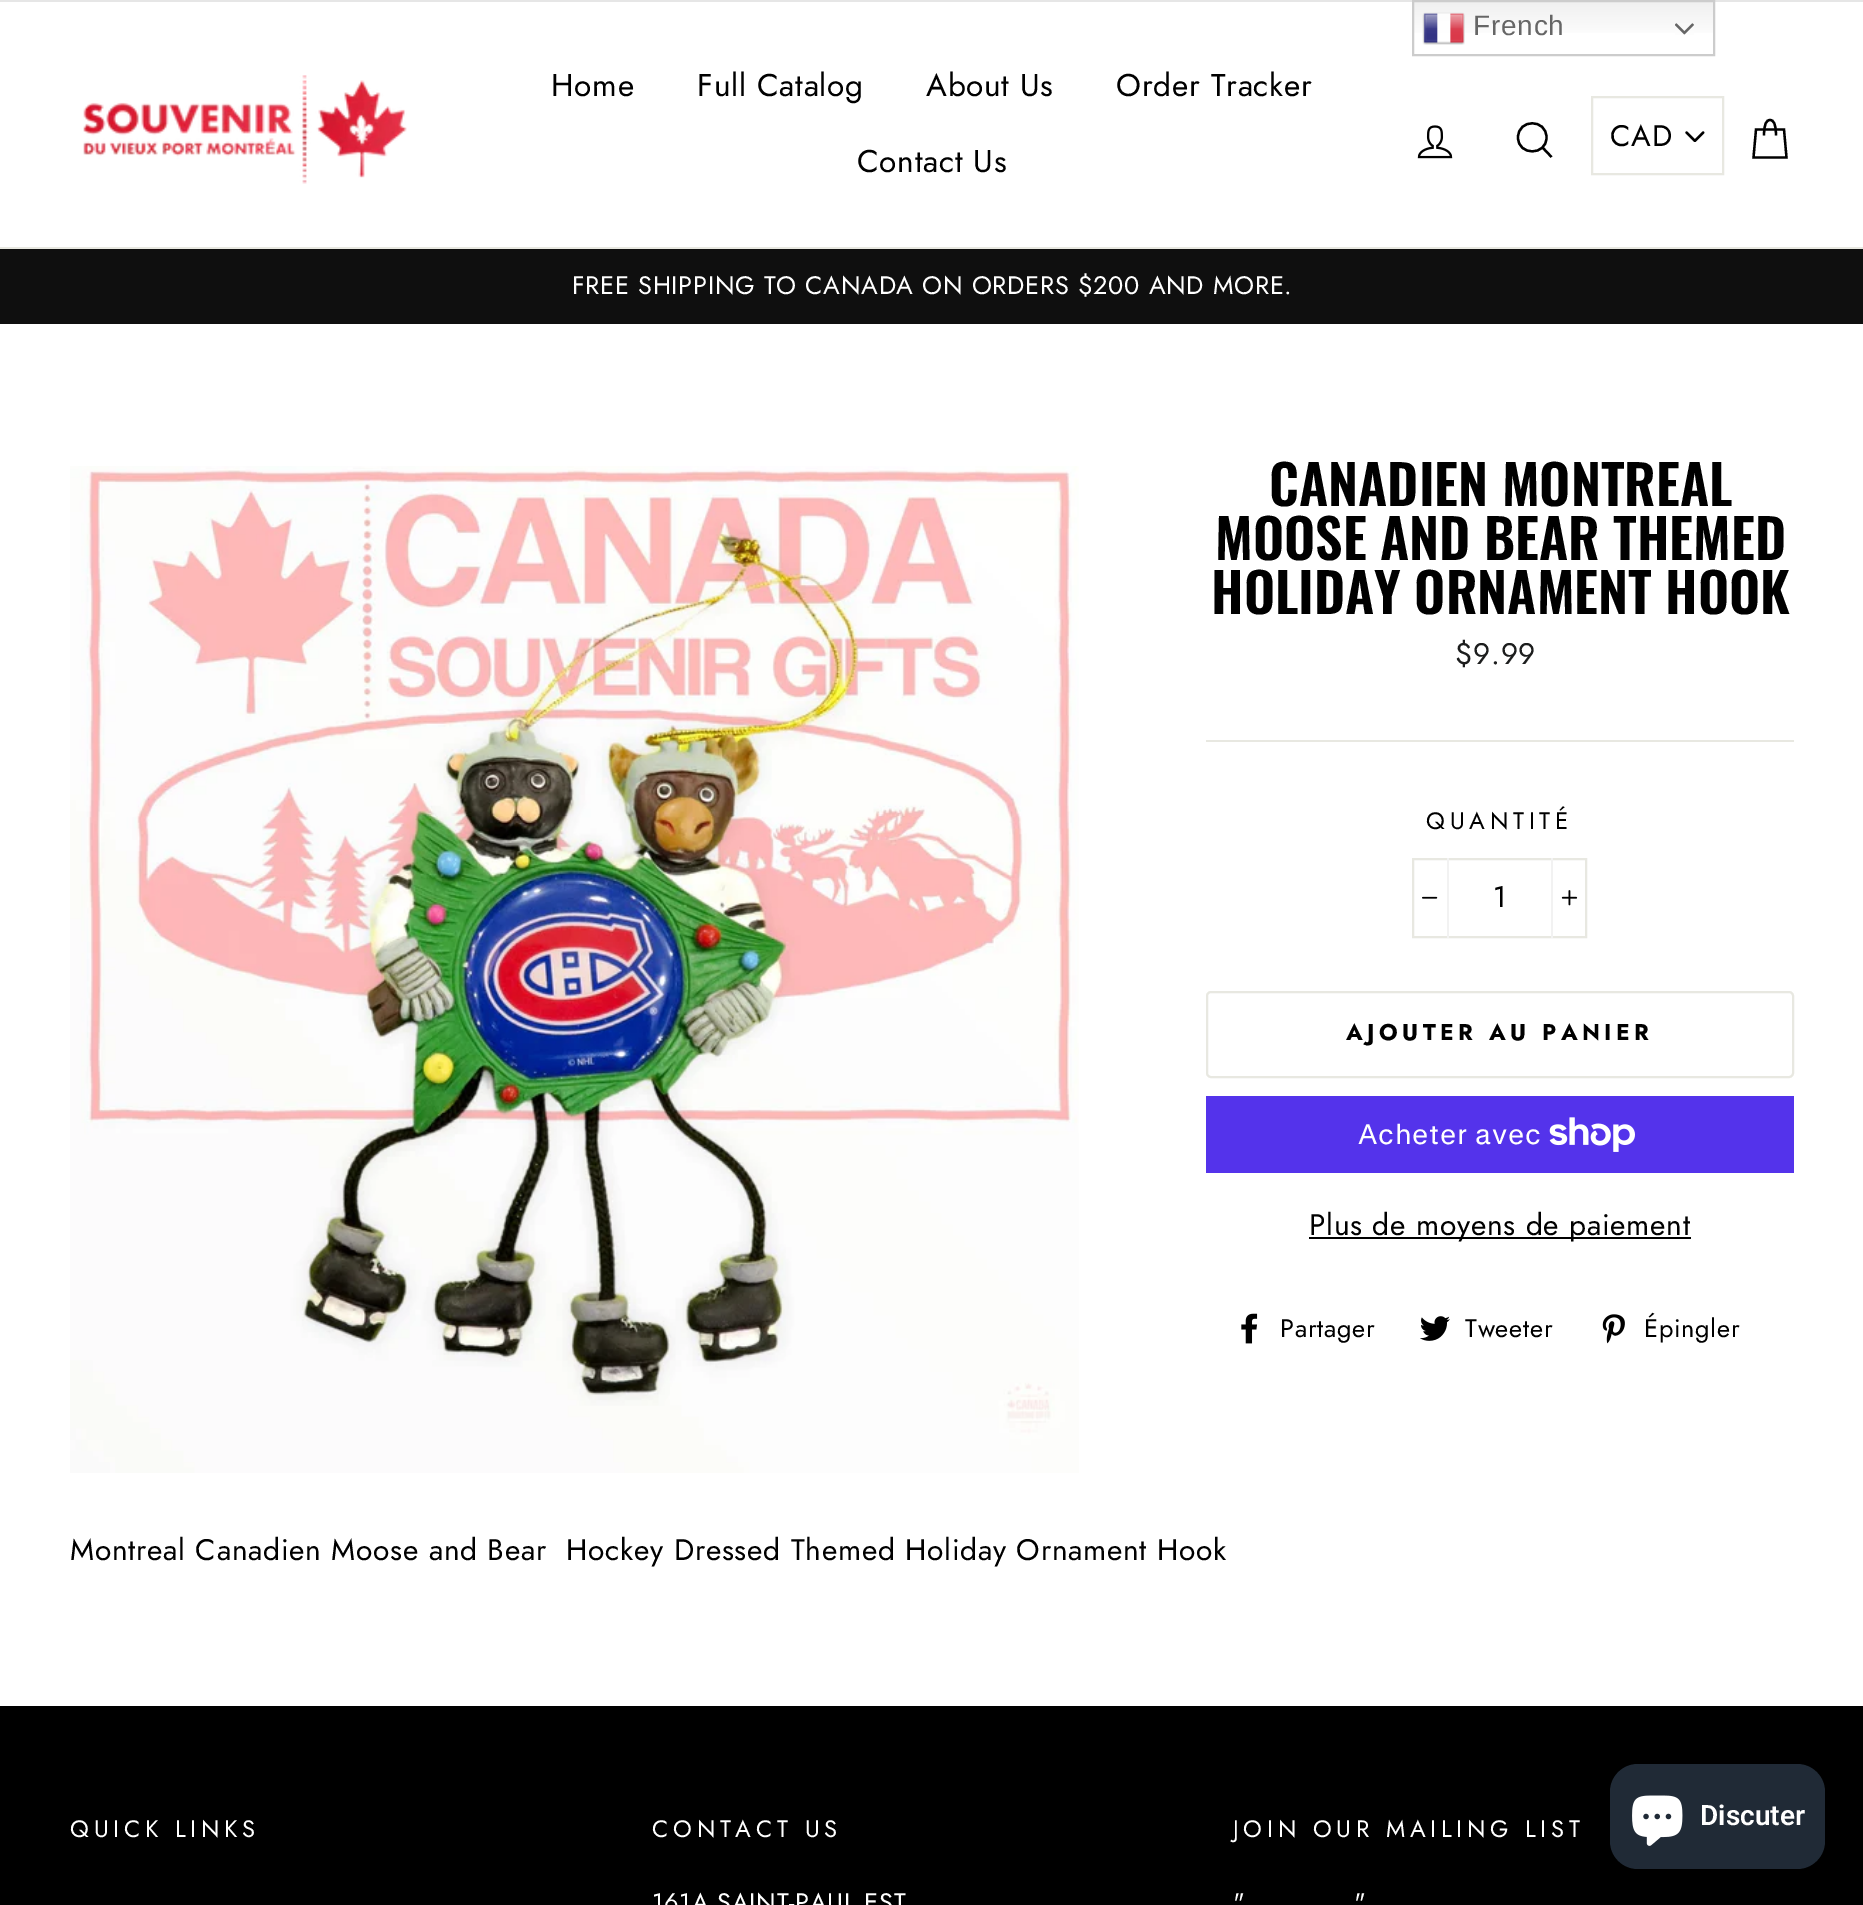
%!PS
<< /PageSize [1863 1905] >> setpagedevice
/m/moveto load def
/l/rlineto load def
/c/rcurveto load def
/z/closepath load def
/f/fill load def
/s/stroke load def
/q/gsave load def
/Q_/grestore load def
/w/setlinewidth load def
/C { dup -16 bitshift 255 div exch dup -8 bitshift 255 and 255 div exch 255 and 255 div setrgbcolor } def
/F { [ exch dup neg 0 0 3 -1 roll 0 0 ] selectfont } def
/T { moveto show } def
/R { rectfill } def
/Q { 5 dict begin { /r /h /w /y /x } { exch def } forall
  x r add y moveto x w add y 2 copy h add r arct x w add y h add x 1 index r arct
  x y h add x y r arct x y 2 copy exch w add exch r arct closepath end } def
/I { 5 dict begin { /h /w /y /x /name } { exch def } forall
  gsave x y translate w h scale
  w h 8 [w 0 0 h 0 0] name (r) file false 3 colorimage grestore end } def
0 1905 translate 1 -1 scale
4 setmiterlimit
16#FFFFFF C
0 0 1863 1905 R
q 1414 2 m 299 0 l 0 31 l -299 0 l z clip newpath
<< /ShadingType 2 /ColorSpace /DeviceRGB /Coords [1564 0 1564 56] /Extend [true true] /Function << /FunctionType 3 /Domain [0 1] /Functions [<< /FunctionType 2 /Domain [0 1] /C0 [.937 .937 .937] /C1 [1 1 1] /N 1 >> << /FunctionType 2 /Domain [0 1] /C0 [1 1 1] /C1 [1 1 1] /N 1 >>] /Bounds [.7] /Encode [0 1 0 1] >> >> shfill Q_
16#E6E6E6 C
0 0 1863 2 R
16#CCCCCC C
2 w
1413 1 301 54 rectstroke
(1.rgb) 1422 12 43 33 I
/LiberationSans-Regular 28 F
16#666666 C
1473 35 m .75 0 (French) ashow
(2.rgb) 1675 23 19 12 I
16#E8E8E1 C
0 247 1863 2 R
(3.rgb) 83 75 324 109 I
/Jost-Regular 31.5 F
16#000000 C
551 96 m .75 0 (Home) ashow
697 96 m .75 0 (Full Catalog) ashow
926 96 m .75 0 (About Us) ashow
1116 96 m .75 0 (Order Tracker) ashow
857 172 m .75 0 (Contact Us) ashow
(4.rgb) 1417 125 36 34 I
2.3 w
1546.5 137.5 m 0 18.5 -28.5 18.5 -28.5 0 c 0 -19 28.5 -19 28.5 0 c z 1551.5 157 m -9 -9.5 l s
(5.rgb) 1685 131 20 11 I
16#E8E8E1 C
2 w
1592 97 131 77 rectstroke
/Jost-Regular 29.75 F
16#000000 C
1610 146 m .75 0 (CAD) ashow
2.3 w
1764 135.5 m 0 -12 2.5 -15.5 6 -15.5 c 3.5 0 6 3.5 6 15.5 c 1756 129.5 m 28 0 l 2.5 28 l -33 0 l z s
16#0F0F0F C
0 249 1863 75 R
/Jost-Regular 25.3 F
16#FFFFFF C
572 294 m .75 0 (FREE SHIPPING TO CANADA ON ORDERS $200 AND MORE.) ashow
(6.rgb) 70 466 1009 1007 I
/Oswald-SemiBold 54.25 F
16#000000 C
(CANADIEN MONTREAL) 1269 506 T
(MOOSE AND BEAR THEMED) 1215 560 T
(HOLIDAY ORNAMENT HOOK) 1211 614 T
/Jost-Regular 29.75 F
16#1C1D1D C
1455 664 m .75 0 ($9.99) ashow
16#E8E8E1 C
1206 740 588 2 R
/Jost-Regular 23.75 F
16#000000 C
1426 829 m 4.75 0 (QUANTITÉ) ashow
16#E8E8E1 C
2 w
1413 859 173 78 rectstroke
16#F2F2F2 C
1447 858 2 80 R
(7.rgb) 1422 896 16 3 I
/Jost-Regular 29.75 F
16#000000 C
1493 907 m .75 0 (1) ashow
16#F2F2F2 C
1551 858 2 80 R
(8.rgb) 1561 890 17 16 I
16#E8E8E1 C
1207 992 586 85 4 Q s
/Jost-Bold 22.75 F
16#000000 C
1346 1040 m 4.5 0 (AJOUTER AU PANIER) ashow
16#5433EB C
1206 1096 588 77 R
/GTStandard-Regular 28 F
16#FFFFFF C
1358 1144 m .75 0 (Acheter avec) ashow
(9.rgb) 1549 1117 86 35 I
16#000000 C
1309 1237 382 2 R
/Jost-Regular 29.75 F
1309 1235 m .75 0 (Plus de moyens de paiement) ashow
(10.rgb) 1241 1313 17 31 I
/Jost-Regular 25.3 F
1280 1337 m .75 0 (Partager) ashow
(11.rgb) 1420 1316 30 25 I
1465 1337 m .75 0 (Tweeter) ashow
(12.rgb) 1602 1314 23 30 I
1644 1337 m .75 0 (Épingler) ashow
/Jost-Regular 29.75 F
70 1560 m .75 0 (Montreal Canadien Moose and Bear  Hockey Dressed Themed Holiday Ornament Hook) ashow
0 1706 1863 199 R
/Jost-Regular 23.75 F
16#FFFFFF C
70 1837 m 4.75 0 (QUICK LINKS) ashow
652 1837 m 4.75 0 (CONTACT US) ashow
/Jost-Regular 25.3 F
652 1911 m .75 0 (161A SAINT-PAUL EST) ashow
/Jost-Regular 23.75 F
1233 1837 m 4.75 0 (JOIN OUR MAILING LIST) ashow
/Jost-Regular 25.3 F
1233 1911 m .75 0 (") ashow
1354 1911 m .75 0 (") ashow
16#202A36 C
1610 1764 215 105 28 Q f
(13.rgb) 1632 1795 51 51 I
/Roboto-SemiBold 28 F
16#FFFFFF C
(Discuter) 1700 1825 T
showpage
